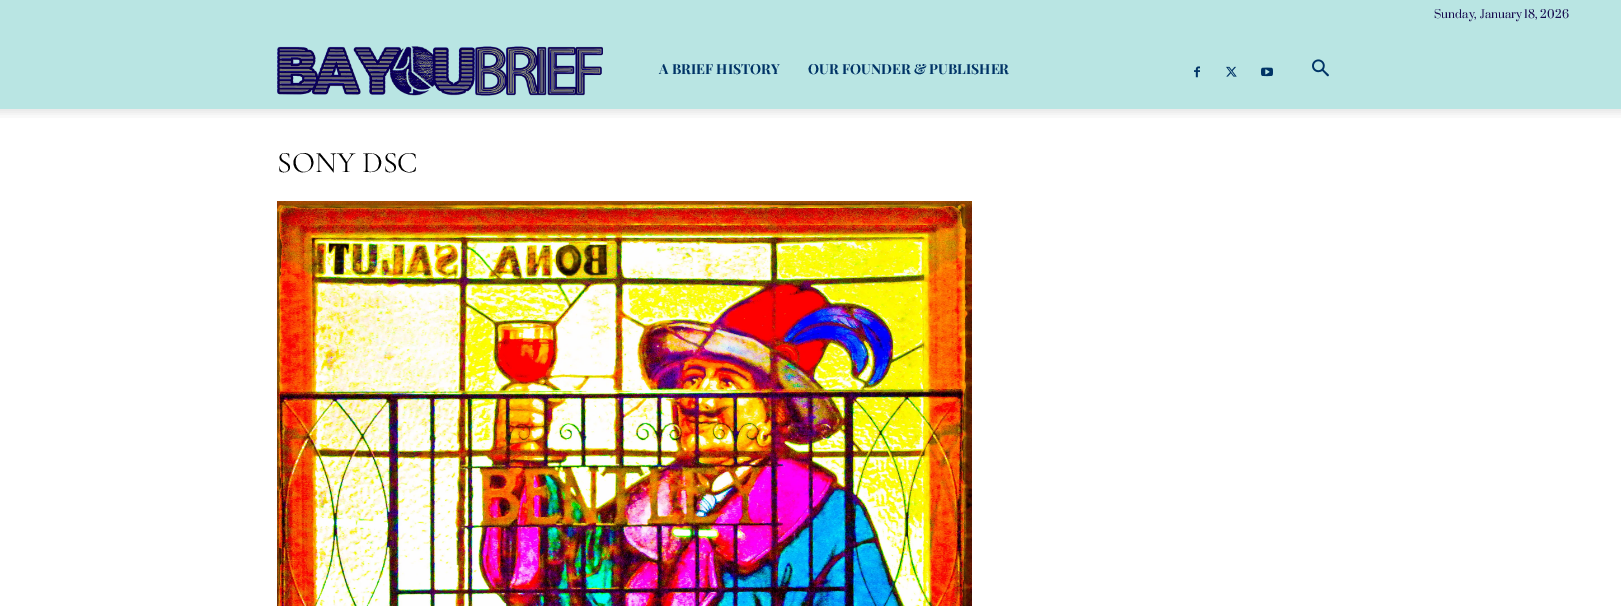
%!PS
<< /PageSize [1621 606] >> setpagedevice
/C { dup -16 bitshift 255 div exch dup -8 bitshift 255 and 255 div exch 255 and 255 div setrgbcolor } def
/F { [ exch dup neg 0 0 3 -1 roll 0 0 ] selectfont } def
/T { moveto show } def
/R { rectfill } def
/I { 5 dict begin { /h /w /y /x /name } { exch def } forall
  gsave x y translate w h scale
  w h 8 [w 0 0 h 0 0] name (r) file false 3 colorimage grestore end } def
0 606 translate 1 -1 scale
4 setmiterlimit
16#FFFFFF C
0 0 1621 606 R
16#B9E5E3 C
0 0 1621 109 R
/Prata-Regular 11 F
16#170B4F C
(Sunday, January 18, 2026) 1434 18 T
(1.rgb) 277 46 326 50 I
/PlayfairDisplay-Bold 14 F
16#003366 C
(A BRIEF HISTORY) 659 74 T
(OUR FOUNDER & PUBLISHER) 808 74 T
(2.rgb) 1194 66 6 12 I
(3.rgb) 1226 66 11 11 I
(4.rgb) 1261 67 12 10 I
(5.rgb) 1312 59 17 18 I
(6.rgb) 0 109 1621 9 I
/CormorantGaramond-Regular 30 F
16#000000 C
(SONY DSC) 277 172 T
(7.rgb) 277 201 695 405 I
showpage
